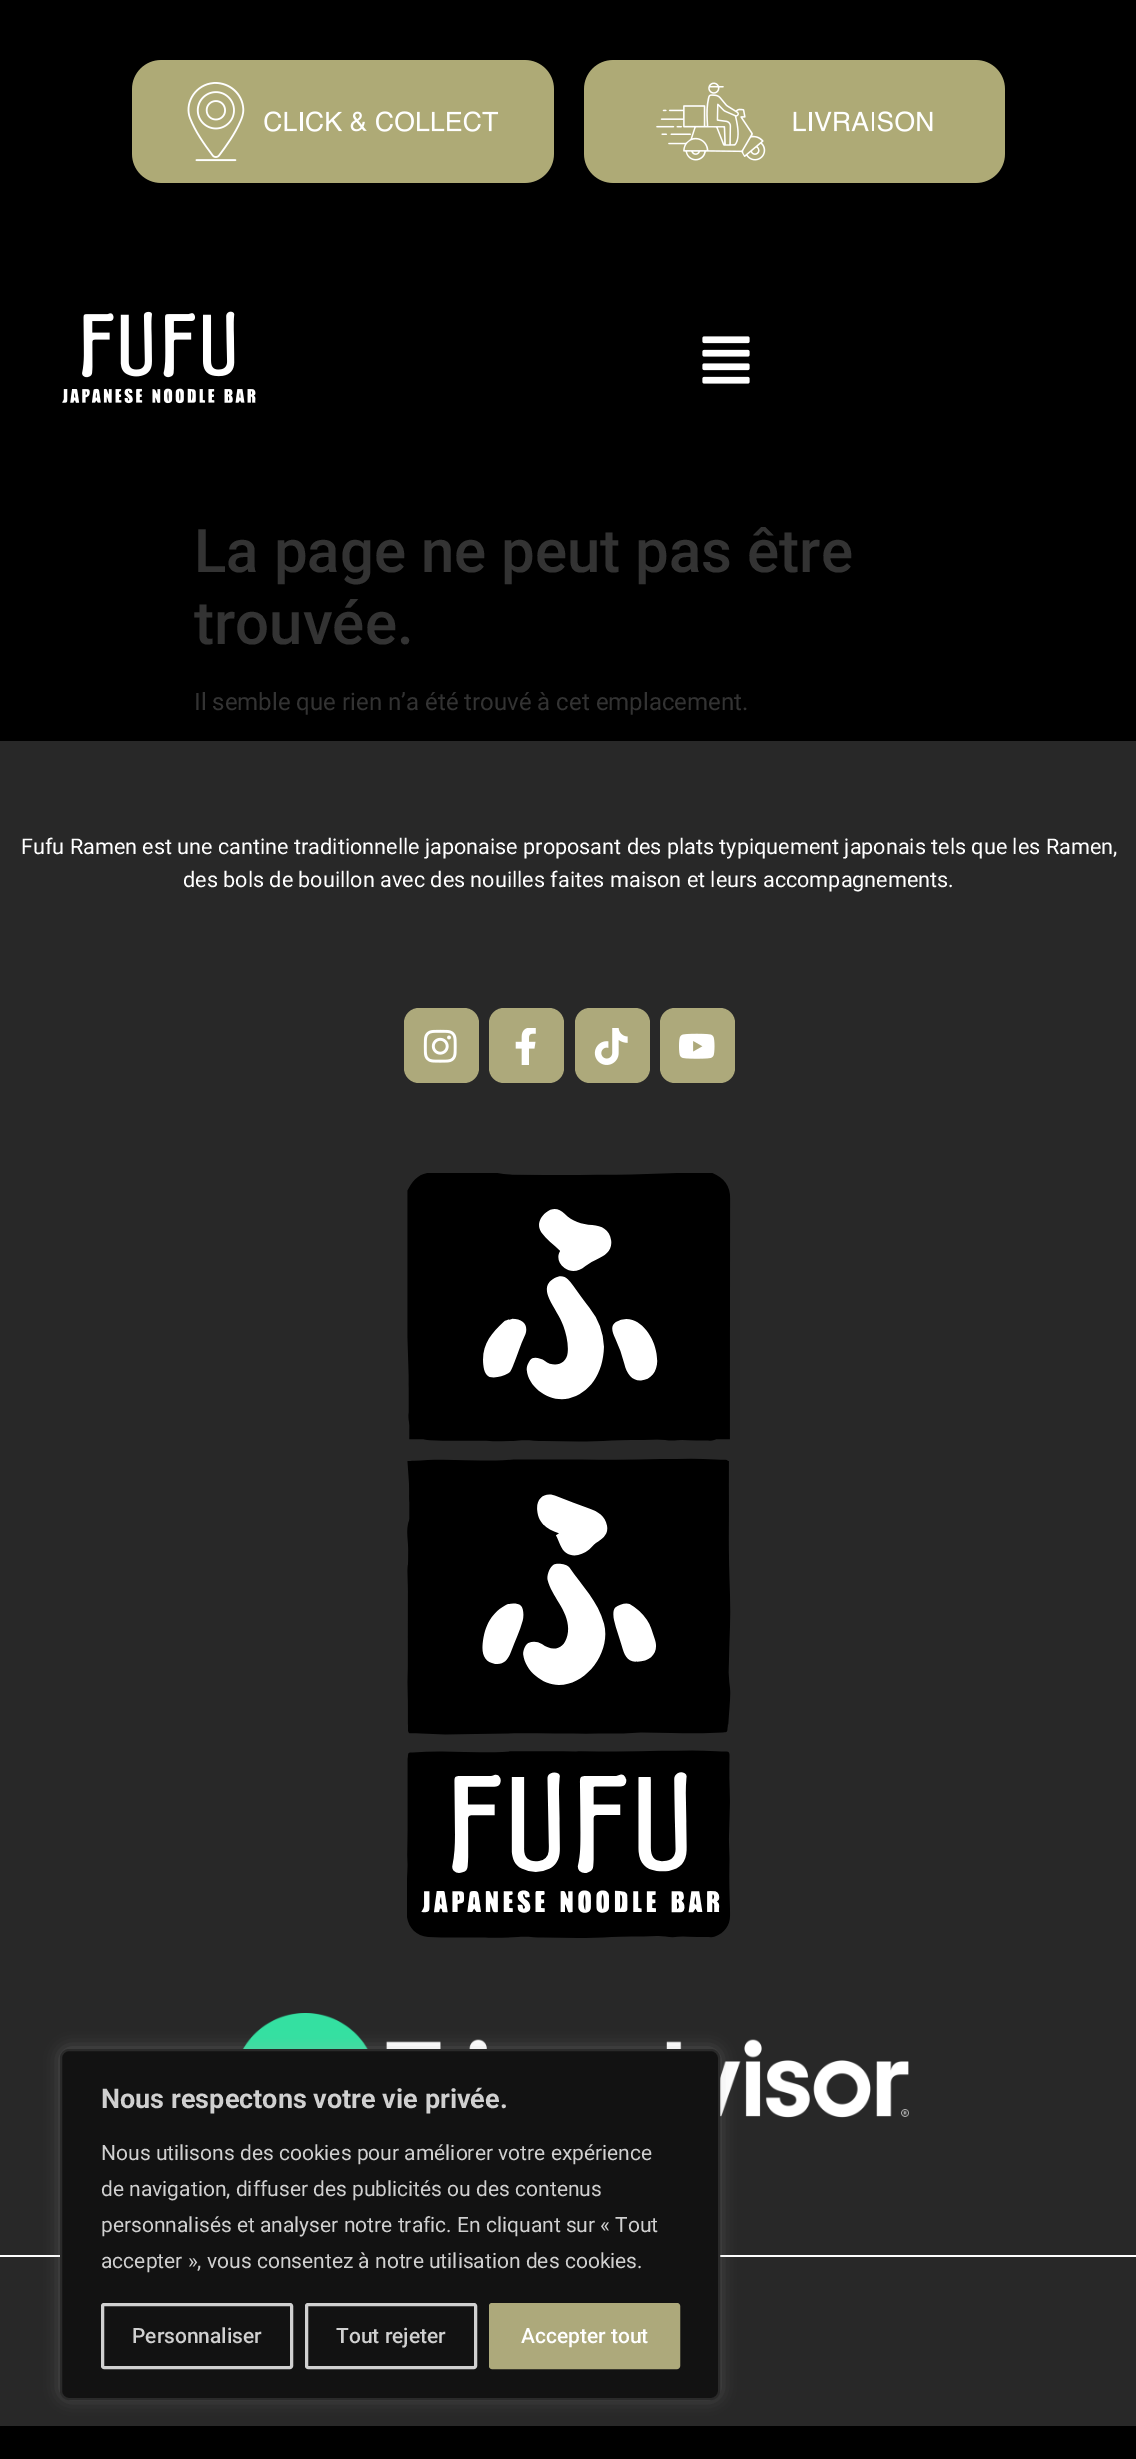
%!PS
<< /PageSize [1136 2459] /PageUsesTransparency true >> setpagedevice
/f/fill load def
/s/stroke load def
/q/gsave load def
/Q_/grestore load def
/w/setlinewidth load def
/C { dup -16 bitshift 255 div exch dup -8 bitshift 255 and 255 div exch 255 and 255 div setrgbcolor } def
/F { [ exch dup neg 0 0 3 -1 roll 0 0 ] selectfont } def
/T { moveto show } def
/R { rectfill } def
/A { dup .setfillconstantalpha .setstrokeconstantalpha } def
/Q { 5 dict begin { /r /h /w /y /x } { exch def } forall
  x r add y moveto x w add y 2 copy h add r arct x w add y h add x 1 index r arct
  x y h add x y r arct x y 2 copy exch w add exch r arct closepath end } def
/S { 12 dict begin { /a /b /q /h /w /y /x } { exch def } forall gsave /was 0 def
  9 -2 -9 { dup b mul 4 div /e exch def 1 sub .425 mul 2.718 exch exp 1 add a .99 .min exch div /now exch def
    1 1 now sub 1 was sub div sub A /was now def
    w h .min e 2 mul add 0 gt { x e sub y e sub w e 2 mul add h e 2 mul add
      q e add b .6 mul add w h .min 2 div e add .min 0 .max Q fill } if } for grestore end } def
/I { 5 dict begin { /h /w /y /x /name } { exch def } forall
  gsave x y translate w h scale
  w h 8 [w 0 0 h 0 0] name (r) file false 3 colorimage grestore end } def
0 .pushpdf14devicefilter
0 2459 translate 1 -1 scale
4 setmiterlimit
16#000000 C
0 0 1136 2459 R
(1.rgb) 132 60 422 123 I
(2.rgb) 584 60 421 123 I
(3.rgb) 62 311 194 93 I
(4.rgb) 702 336 48 48 I
/Roboto-Medium 60 F
16#333333 C
(La page ne peut pas être) 194 572 T
(trouvée.) 194 644 T
/Roboto-Regular 24 F
(Il semble que rien n’a été trouvé à cet emplacement.) 194 710 T
16#282828 C
0 741 1136 1685 R
/Roboto-Regular 21.6 F
16#FFFFFF C
(Fufu Ramen est une cantine traditionnelle japonaise proposant des plats typiquement japonais tels que les Ramen,) 21 854 T
(des bols de bouillon avec des nouilles faites maison et leurs accompagnements.) 183 887 T
16#ADA97B C
404 1008 75 75 15 Q f
(5.rgb) 423 1029 34 34 I
489 1008 75 75 15 Q f
(6.rgb) 515 1028 21 37 I
575 1008 75 75 15 Q f
(7.rgb) 594 1028 34 37 I
660 1008 75 75 15 Q f
(8.rgb) 679 1033 36 26 I
(9.rgb) 407 1173 324 765 I
(10.rgb) 242 2013 667 105 I
16#FFFFFF C
0 2255 1136 2 R
16#ACABAB C
60 2048 660 351 9 7.5 .3 S
16#121212 C
61 2050 658 349 8 Q q f Q_
16#2A2A2A C
2 w
s
/Roboto-Bold 27 F
16#D0D0D0 C
(Nous respectons votre vie privée.) 101 2108 T
/Roboto-Regular 21 F
(Nous utilisons des cookies pour améliorer votre expérience) 101 2160 T
(de navigation, diffuser des publicités ou des contenus) 101 2196 T
(personnalisés et analyser notre trafic. En cliquant sur « Tout) 101 2232 T
(accepter », vous consentez à notre utilisation des cookies.) 101 2268 T
3 w
102.5 2304.5 189 63 1.5 Q s
/Roboto-Medium 21 F
(Personnaliser) 132 2343 T
306.5 2304.5 169 63 1.5 Q s
(Tout rejeter) 336 2343 T
16#ADA97B C
490.5 2304.5 188 63 1.5 Q q f Q_
s
16#FFFFFF C
(Accepter tout) 521 2343 T
.poppdf14devicefilter showpage
